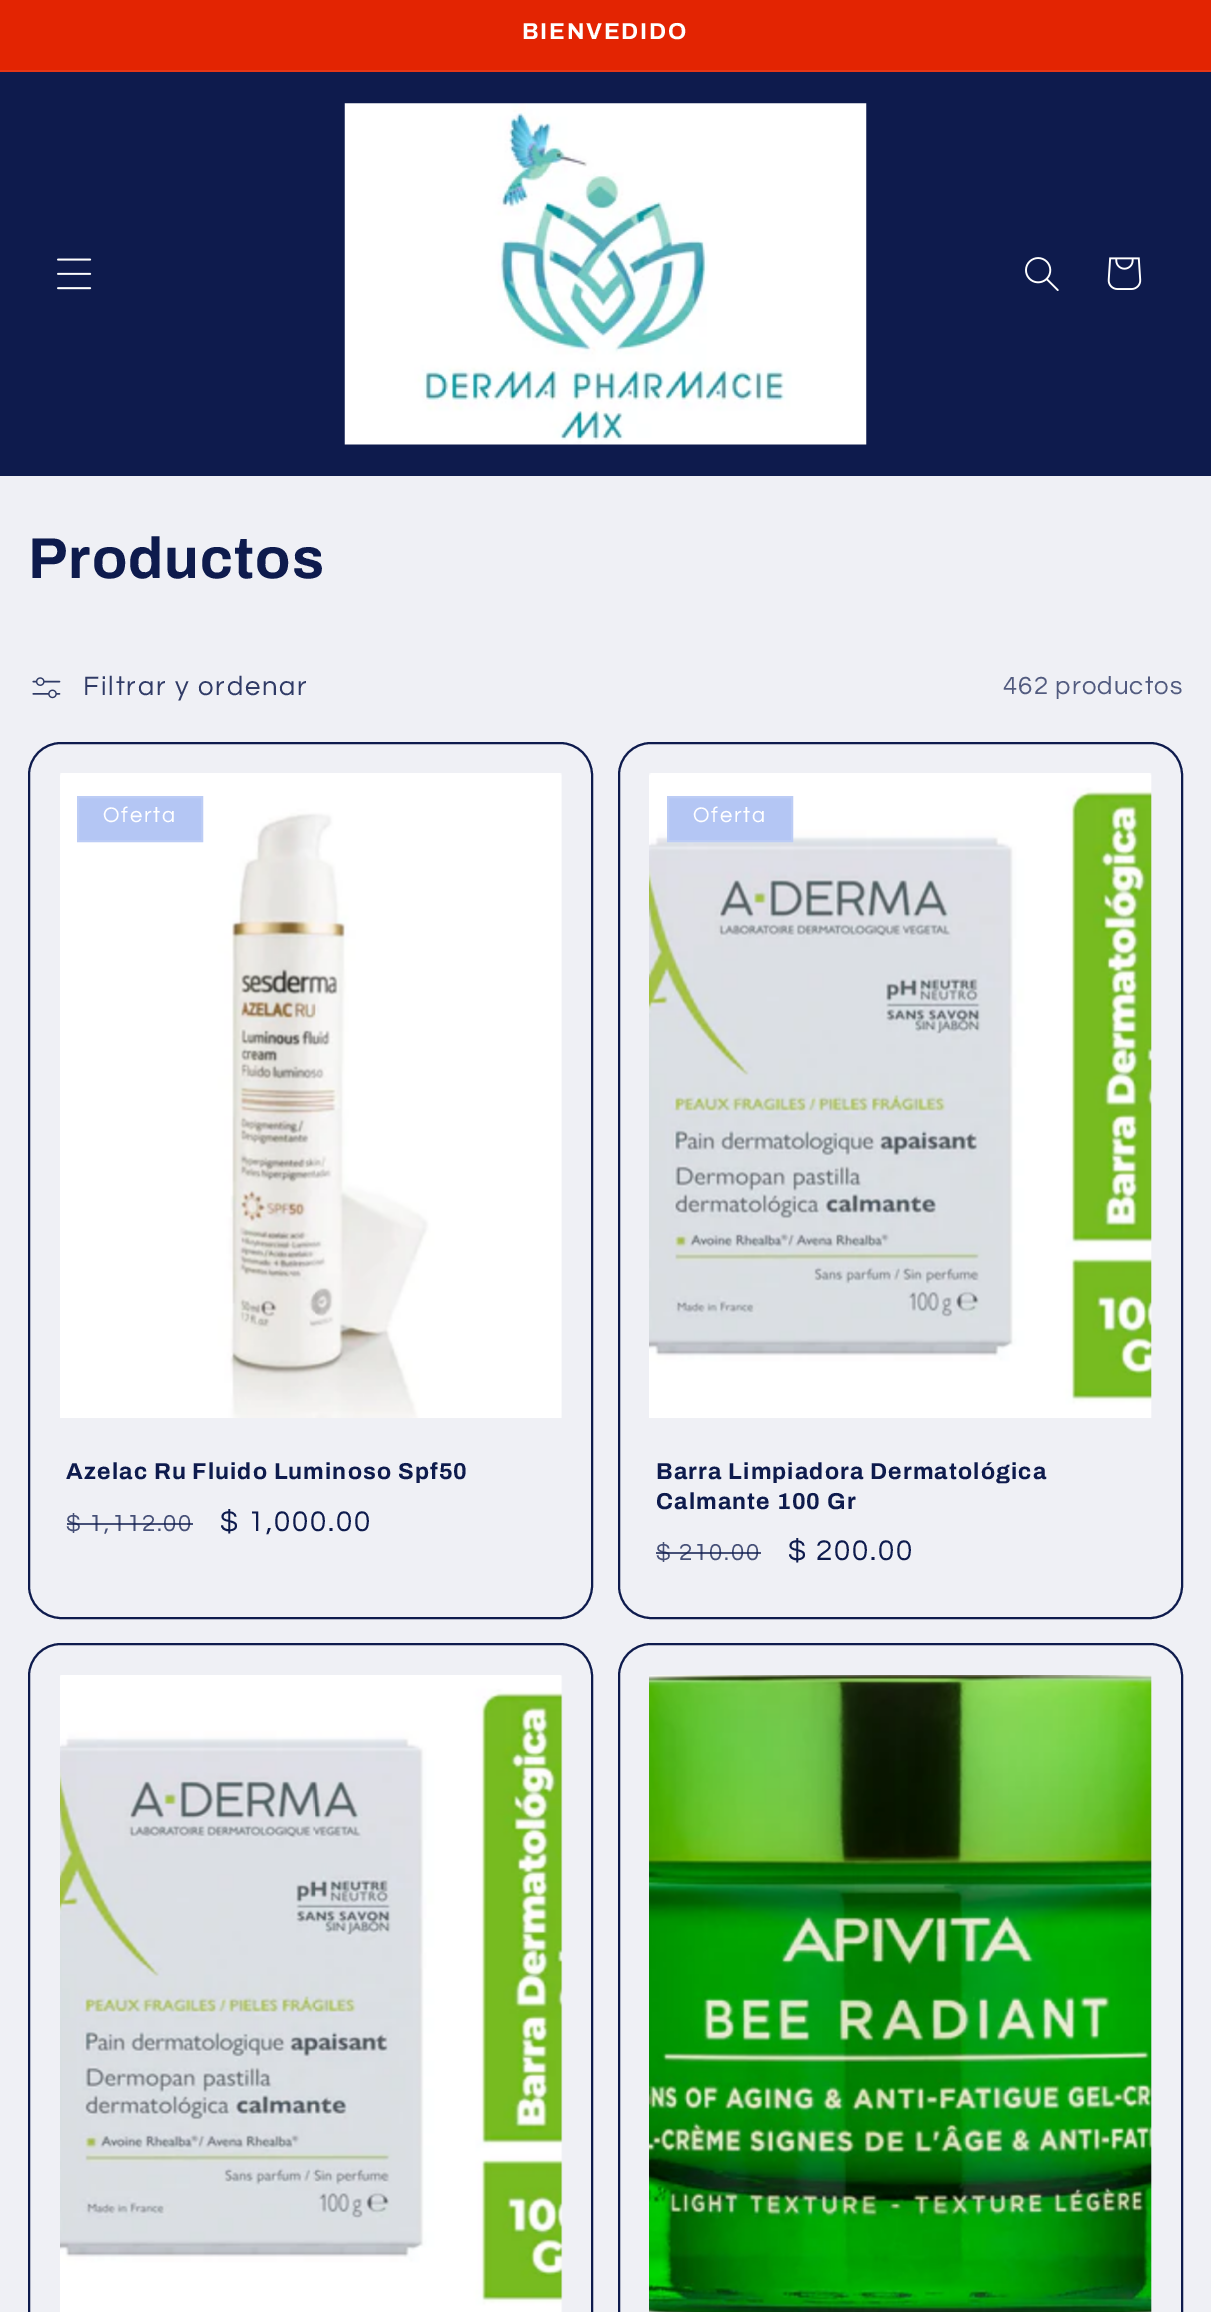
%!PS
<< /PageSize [1211 2312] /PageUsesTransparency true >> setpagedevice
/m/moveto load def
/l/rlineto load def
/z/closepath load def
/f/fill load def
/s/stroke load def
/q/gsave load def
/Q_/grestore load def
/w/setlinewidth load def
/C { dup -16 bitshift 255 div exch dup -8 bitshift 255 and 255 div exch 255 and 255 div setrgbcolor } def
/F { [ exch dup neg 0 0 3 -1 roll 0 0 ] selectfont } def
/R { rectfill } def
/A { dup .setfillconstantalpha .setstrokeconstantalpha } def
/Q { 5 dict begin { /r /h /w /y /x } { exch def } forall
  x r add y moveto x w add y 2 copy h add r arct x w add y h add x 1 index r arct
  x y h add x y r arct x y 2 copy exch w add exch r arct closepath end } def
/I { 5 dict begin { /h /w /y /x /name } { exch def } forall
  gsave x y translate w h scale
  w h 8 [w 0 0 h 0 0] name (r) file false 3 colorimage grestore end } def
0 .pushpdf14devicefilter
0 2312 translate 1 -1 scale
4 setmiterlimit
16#EFF0F5 C
0 0 1211 2312 R
16#E32402 C
0 0 1211 70 R
16#E53616 C
0 70 1211 2 R
/Archivo-Bold 23.1 F
16#FFFFFF C
522 39 m 1.8 0 (BIENVEDIDO) ashow
16#0E1B4D C
0 72 1211 404 R
(1.rgb) 57 258 35 32 I
(2.rgb) 344 103 523 342 I
(3.rgb) 1025 257 34 34 I
(4.rgb) 1107 257 35 33 I
/Archivo-Bold 57.75 F
28 578 m 1.15 0 (Productos) ashow
(5.rgb) 32 677 29 22 I
/Questrial-Regular 27.5 F
16#303B66 C
83 695 m 1.8 0 (Filtrar y ordenar) ashow
/Questrial-Regular 25.75 F
16#525B7F C
1003 694 m 1.1 0 (462 productos) ashow
16#0E1B4D C
2 w
29 743 563 875 32 Q s
(6.rgb) 60 773 502 645 I
16#B4C6F4 C
78 797 m 124 0 l 0 44 l -124 0 l z q f Q_
16#BCCCF5 C
s
/Questrial-Regular 22 F
16#FFFFFF C
103 822 m 1.8 0 (Oferta) ashow
/Archivo-Bold 23.1 F
16#0E1B4D C
66 1479 m 1.15 0 (Azelac Ru Fluido Luminoso Spf50) ashow
/Questrial-Regular 24 F
16#465077 C
66 1531 m 1.8 0 ($ 1,112.00) ashow
0.75 A
16#0E1B4D C
67 1523 126 2 R
/Questrial-Regular 29.5 F
1 A
220 1531 m 1.8 0 ($ 1,000.00) ashow
619 743 563 875 32 Q s
(7.rgb) 649 773 503 645 I
16#B4C6F4 C
668 797 m 124 0 l 0 44 l -124 0 l z q f Q_
16#BCCCF5 C
s
/Questrial-Regular 22 F
16#FFFFFF C
693 822 m 1.8 0 (Oferta) ashow
/Archivo-Bold 23.1 F
16#0E1B4D C
656 1479 m 1.15 0 (Barra Limpiadora Dermatológica) ashow
656 1509 m 1.15 0 (Calmante 100 Gr) ashow
/Questrial-Regular 24 F
16#465077 C
656 1560 m 1.8 0 ($ 210.00) ashow
0.75 A
16#0E1B4D C
656 1552 105 2 R
/Questrial-Regular 29.5 F
1 A
788 1560 m 1.8 0 ($ 200.00) ashow
29 1644 563 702 32 Q s
(8.rgb) 60 1675 503 637 I
619 1644 563 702 32 Q s
(9.rgb) 649 1675 503 637 I
.poppdf14devicefilter showpage
